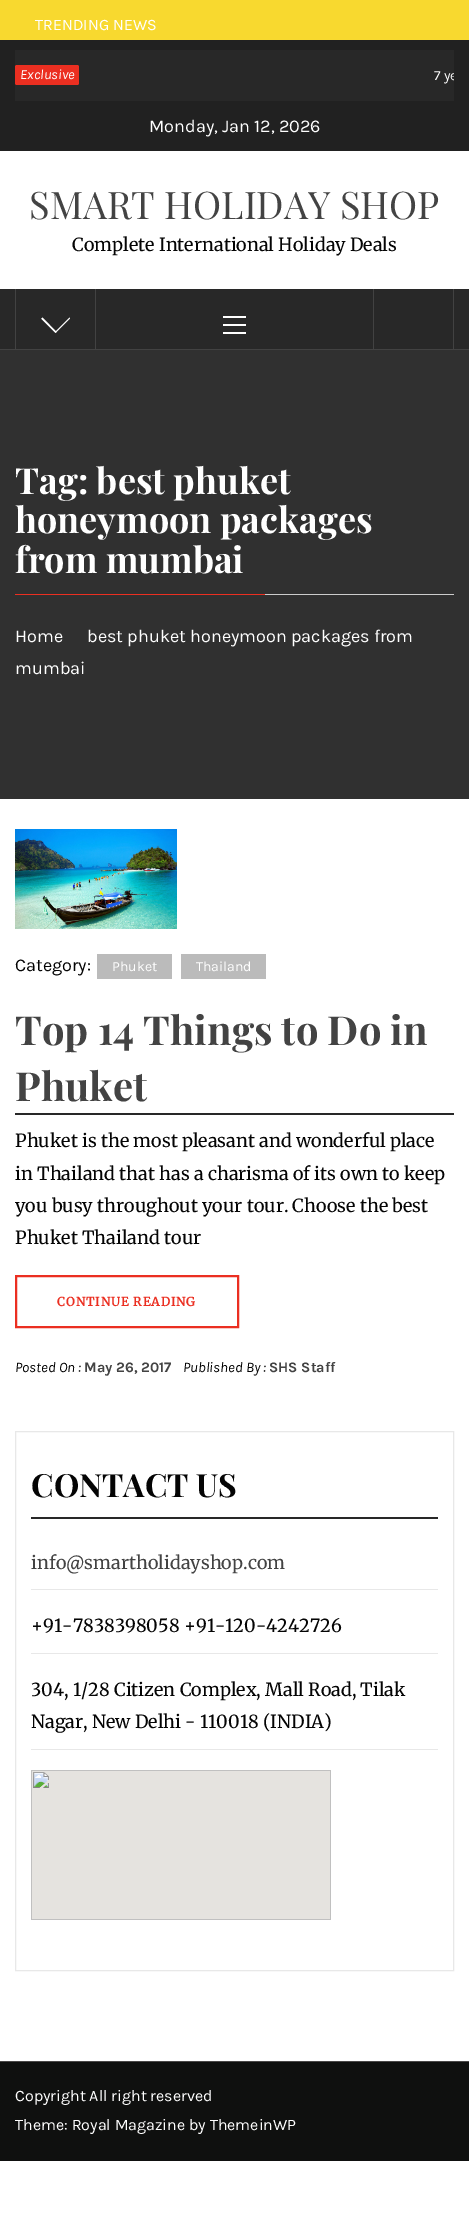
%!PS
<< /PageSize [469 2236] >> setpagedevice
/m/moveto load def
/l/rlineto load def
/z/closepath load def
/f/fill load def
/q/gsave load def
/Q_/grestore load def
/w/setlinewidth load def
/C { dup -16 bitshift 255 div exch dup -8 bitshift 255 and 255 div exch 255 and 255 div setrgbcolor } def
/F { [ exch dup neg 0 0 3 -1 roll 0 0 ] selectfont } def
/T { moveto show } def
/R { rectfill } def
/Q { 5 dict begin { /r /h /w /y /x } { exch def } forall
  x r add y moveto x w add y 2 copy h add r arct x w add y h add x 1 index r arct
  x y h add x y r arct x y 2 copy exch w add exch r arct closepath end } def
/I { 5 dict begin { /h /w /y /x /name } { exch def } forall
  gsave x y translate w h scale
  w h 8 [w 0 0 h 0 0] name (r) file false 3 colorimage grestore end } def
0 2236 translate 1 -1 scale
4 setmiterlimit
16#FFFFFF C
0 0 469 2236 R
16#F8D92F C
0 0 469 40 R
/Karla-Regular 16 F
16#FFFFFF C
(TRENDING NEWS) 35 30 T
16#212121 C
0 40 469 111 R
16#282828 C
15 50 439 51 R
16#EB2F21 C
15 65 64 20 2 Q f
/Karla-Italic 14 F
16#FFFFFF C
(Exclusive) 20 79 T
q
15 50 439 51 rectclip
/Karla-Regular 14 F
(7 ye) 434 80 T
Q_
/Karla-Regular 18 F
(Monday, Jan 12, 2026) 149 132 T
/PlayfairDisplay-Regular 38 F
16#434343 C
(SMART HOLIDAY SHOP) 29 219 T
/Merriweather-Light 18 F
16#040404 C
(Complete International Holiday Deals) 72 251 T
16#282828 C
0 289 469 60 R
16#424242 C
0 349 469 1 R
453 289 1 60 R
15 289 1 60 R
95 289 1 60 R
16#FFFFFF C
42 318 m 14 14 l -.5 1 l -14 -14 l z f
69.5 317.5 m .5 1 l -14 14 l -1 -.5 l z f
42.5 317.5 m 14 14.5 l -.5 .5 l -14.5 -14 l z f
223 324 23 2 R
223 316 23 2 R
223 332 23 2 R
16#424242 C
373 289 1 60 R
16#303030 C
0 350 469 449 R
16#CCCCCC C
265 594 189 1 R
/PlayfairDisplay-Bold 36 F
16#FFFFFF C
(Tag: best phuket) 15 494 T
(honeymoon packages) 15 533 T
(from mumbai) 15 573 T
16#EB2F21 C
15 594 250 1 R
/Karla-Regular 18 F
16#FFFFFF C
(Home) 15 642 T
(best phuket honeymoon packages from) 87 642 T
(mumbai) 15 674 T
(1.rgb) 15 829 162 100 I
16#040404 C
(Category:) 15 971 T
16#BBBBBB C
97 954 75 25 R
/Karla-Regular 14 F
16#FFFFFF C
(Phuket) 112 971 T
16#BBBBBB C
181 954 85 25 R
16#FFFFFF C
(Thailand) 196 971 T
16#282828 C
15 1113 439 2 R
/PlayfairDisplay-Bold 40 F
16#434343 C
(Top 14 Things to Do in) 15 1045 T
(Phuket) 15 1101 T
/Merriweather-Light 18 F
16#040404 C
(Phuket is the most pleasant and wonderful place) 15 1147 T
(in Thailand that has a charisma of its own to keep) 15 1180 T
(you busy throughout your tour. Choose the best) 15 1212 T
(Phuket Thailand tour) 15 1244 T
16#EB2F21 C
2 w
16 1276 222 51 rectstroke
/Merriweather-Bold 12 F
57 1306 m 1 0 (CONTINUE READING) ashow
/Karla-Italic 14.5 F
16#040404 C
(Posted On :) 15 1372 T
/Karla-Bold 14.5 F
16#434343 C
(May 26, 2017) 84 1372 T
/Karla-Italic 14.5 F
16#040404 C
(Published By :) 183 1372 T
/Karla-Bold 14.5 F
16#434343 C
(SHS Staff) 269 1372 T
16#E8E8E8 C
1 w
15.5 1431.5 438 539 rectstroke
/PlayfairDisplay-Bold 32 F
16#040404 C
(CONTACT US) 31 1497 T
16#282828 C
31 1517 407 2 R
16#E8E8E8 C
31 1589 407 1 R
/Merriweather-Light 18 F
16#434343 C
(info@smartholidayshop.com) 31 1569 T
16#E8E8E8 C
31 1653 407 1 R
16#040404 C
(+91-7838398058 +91-120-4242726) 31 1632 T
16#E8E8E8 C
31 1749 407 1 R
16#040404 C
(304, 1/28 Citizen Complex, Mall Road, Tilak) 31 1696 T
(Nagar, New Delhi - 110018 \(INDIA\)) 31 1728 T
(2.rgb) 31 1770 300 150 I
16#0F100F C
0 2062 469 99 R
16#4A4848 C
0 2061 469 1 R
/Karla-Regular 16 F
16#FFFFFF C
(Copyright All right reserved) 15 2101 T
(Theme: Royal Magazine by ThemeinWP) 15 2130 T
showpage
